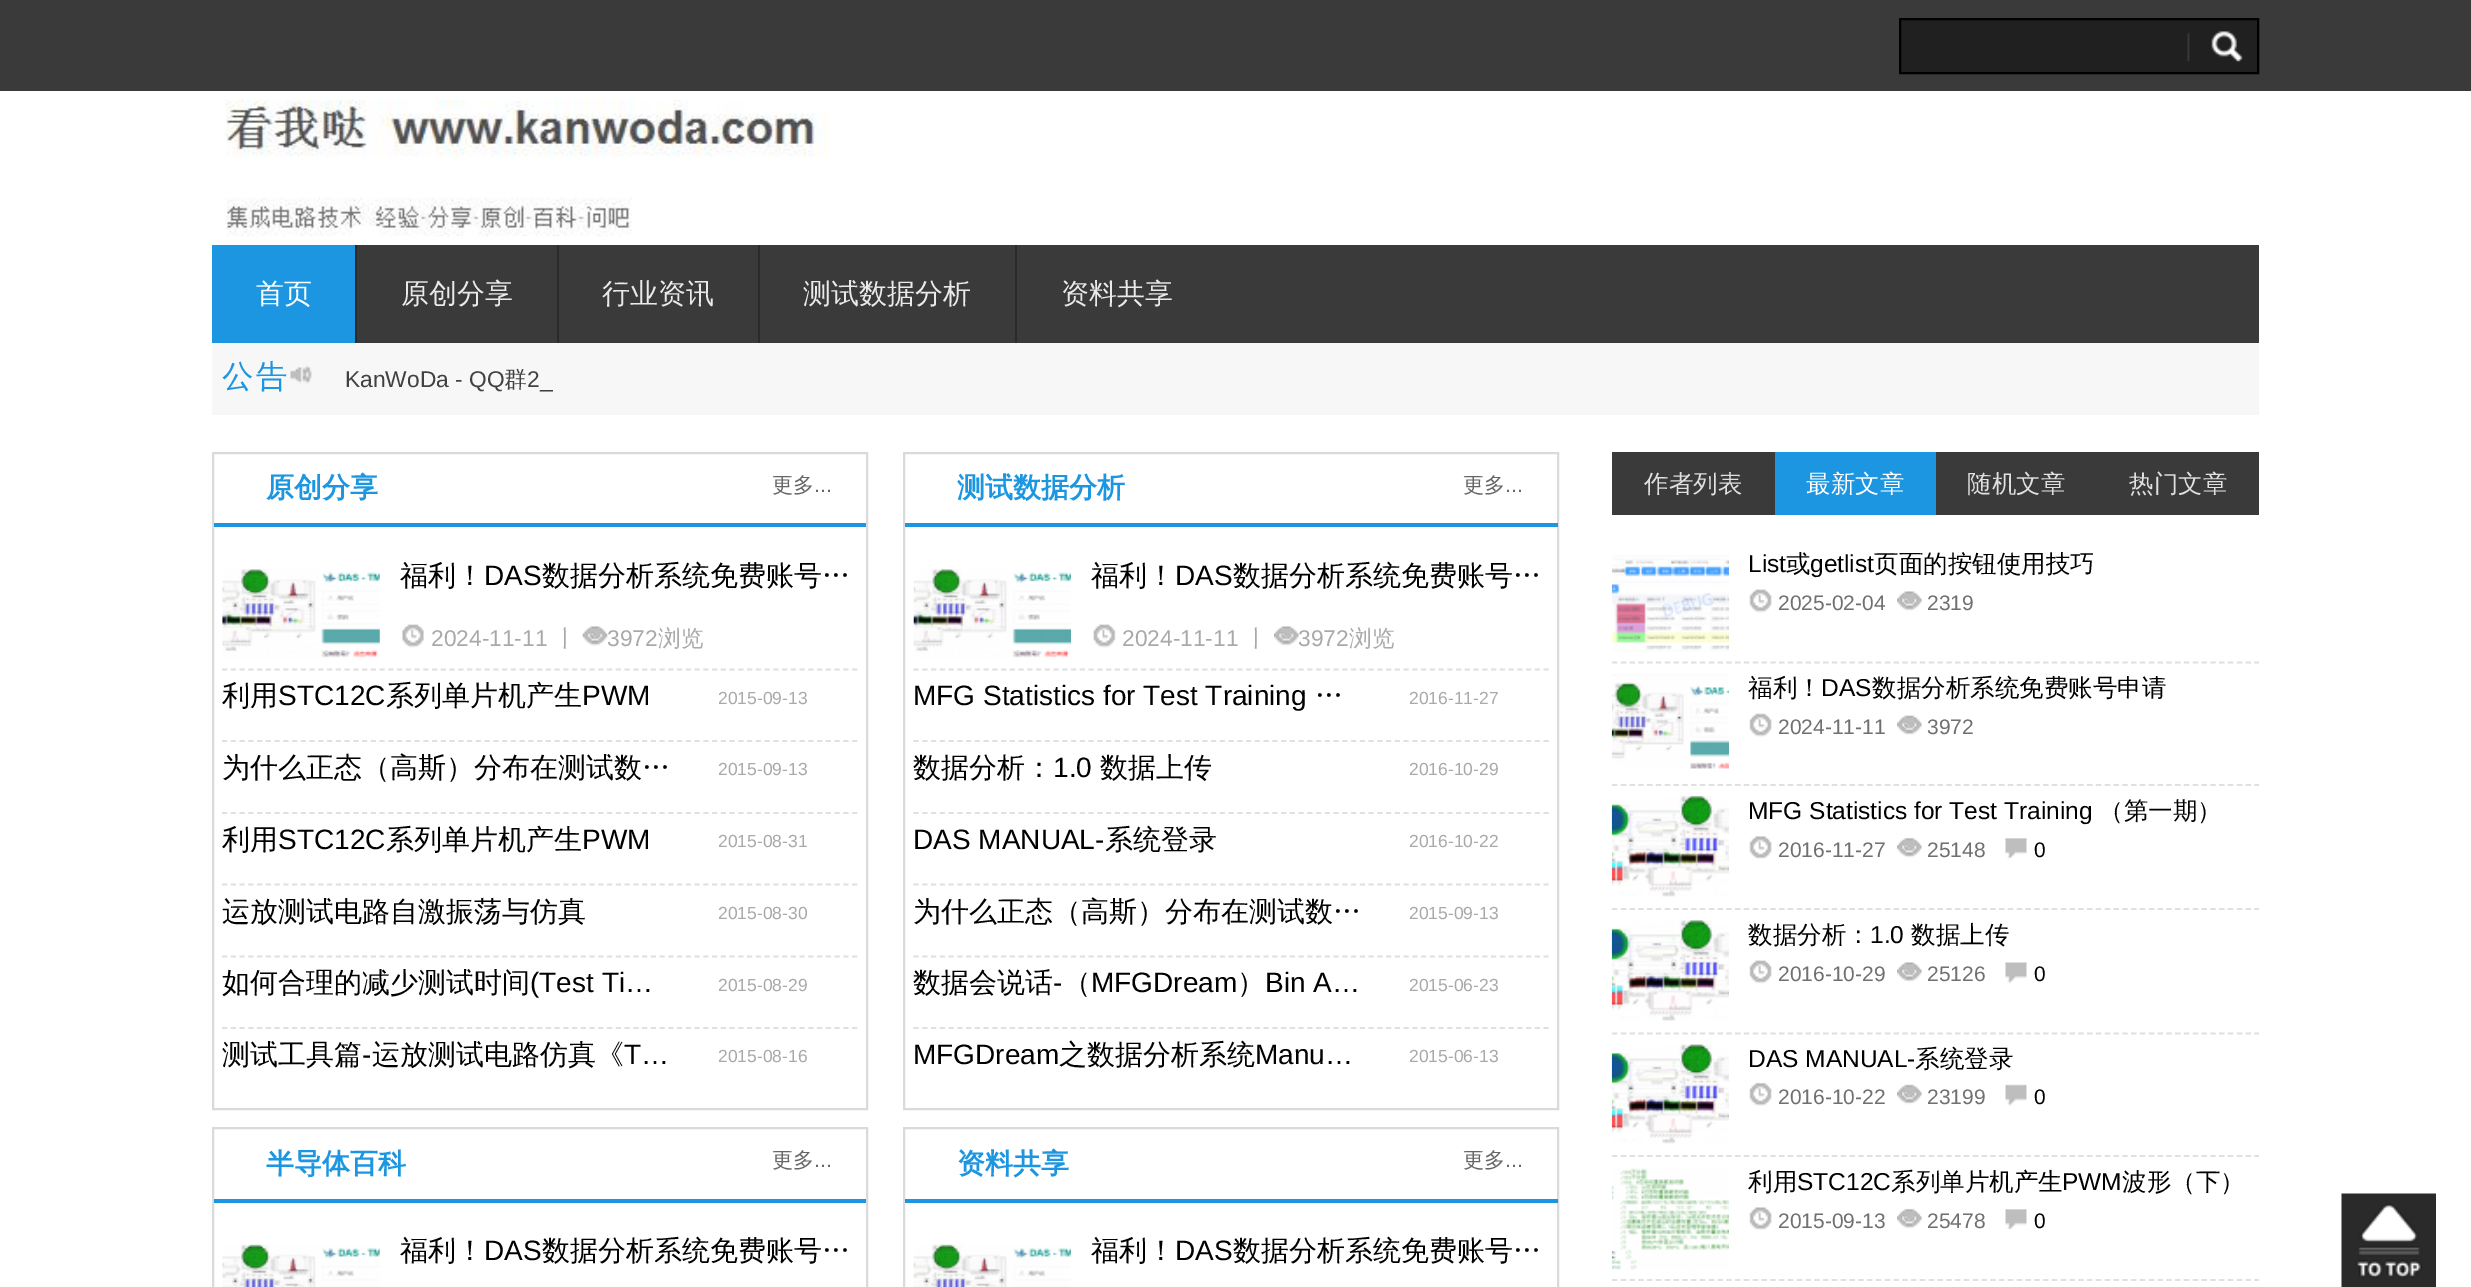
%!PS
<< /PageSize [2471 1287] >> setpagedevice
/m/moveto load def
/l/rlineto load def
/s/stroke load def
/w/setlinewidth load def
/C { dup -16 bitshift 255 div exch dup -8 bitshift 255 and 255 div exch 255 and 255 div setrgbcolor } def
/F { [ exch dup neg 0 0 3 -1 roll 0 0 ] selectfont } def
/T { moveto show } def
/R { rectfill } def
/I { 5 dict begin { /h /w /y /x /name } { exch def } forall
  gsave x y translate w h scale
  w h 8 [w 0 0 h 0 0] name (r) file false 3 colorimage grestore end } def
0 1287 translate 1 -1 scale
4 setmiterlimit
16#FFFFFF C
0 0 2471 1287 R
16#3A3A3A C
0 0 2471 91 R
16#202020 C
1901 20 356 52 R
(1.rgb) 2187 31 56 31 I
16#000000 C
2 w
1900 19 358 54 rectstroke
(2.rgb) 225 99 604 138 I
16#3A3A3A C
357 245 1902 98 R
16#1D96E2 C
212 245 143 98 R
16#2A2A2A C
355 245 2 98 R
/WenQuanYiZenHei-Medium 28 F
16#FFFFFF C
(首页) 256 303 T
16#2A2A2A C
557 245 2 98 R
16#EAEAEA C
(原创分享) 401 303 T
16#2A2A2A C
758 245 2 98 R
16#EAEAEA C
(行业资讯) 602 303 T
16#2A2A2A C
1015 245 2 98 R
16#EAEAEA C
(测试数据分析) 803 303 T
(资料共享) 1061 303 T
16#F7F7F7 C
212 343 2047 72 R
/WenQuanYiZenHei-Medium 31.5 F
16#1D96E2 C
222 387 m 2 0 (公告) ashow
(3.rgb) 290 365 22 19 I
/LiberationSans-Regular 22.75 F
16#414141 C
(KanWoDa - QQ) 345 387 T
/WenQuanYiZenHei-Medium 22.75 F
(群) 504 387 T
/LiberationSans-Regular 22.75 F
(2_) 527 387 T
16#DADADA C
213 453 654 656 rectstroke
16#1D96E2 C
214 523 652 4 R
/WenQuanYiZenHei-Bold 28 F
(原创分享) 266 497 T
/WenQuanYiZenHei-Medium 21 F
16#666666 C
(更多) 772 492 T
/LiberationSans-Regular 21 F
(...) 814 492 T
16#E0E0E0 C
1.8 w
[5.25 3.5] 0 setdash
222 669.5 m 635.5 0 l s
(4.rgb) 222 569 158 89 I
/WenQuanYiZenHei-Medium 28 F
16#000000 C
(福利！) 400 585 T
/LiberationSans-Regular 28 F
(DAS) 484 585 T
/WenQuanYiZenHei-Medium 28 F
(数据分析系统免费账号…) 542 585 T
(5.rgb) 402 624 22 24 I
/LiberationSans-Regular 22.75 F
16#A9A9A9 C
(2024-11-11) 431 646 T
/WenQuanYiZenHei-Medium 22.75 F
(丨) 554 646 T
(6.rgb) 582 626 26 20 I
/LiberationSans-Regular 22.75 F
(3972) 607 646 T
/WenQuanYiZenHei-Medium 22.75 F
(浏览) 658 646 T
16#E0E0E0 C
222 741 m 635.5 0 l s
/WenQuanYiZenHei-Medium 28 F
16#000000 C
(利用) 222 705 T
/LiberationSans-Regular 28 F
(STC12C) 278 705 T
/WenQuanYiZenHei-Medium 28 F
(系列单片机产生) 386 705 T
/LiberationSans-Regular 28 F
(PWM) 582 705 T
/LiberationSans-Regular 17.5 F
16#A9A9A9 C
(2015-09-13) 718 704 T
16#E0E0E0 C
222 813 m 635.5 0 l s
/WenQuanYiZenHei-Medium 28 F
16#000000 C
(为什么正态（高斯）分布在测试数…) 222 777 T
/LiberationSans-Regular 17.5 F
16#A9A9A9 C
(2015-09-13) 718 775 T
16#E0E0E0 C
222 884.5 m 635.5 0 l s
/WenQuanYiZenHei-Medium 28 F
16#000000 C
(利用) 222 849 T
/LiberationSans-Regular 28 F
(STC12C) 278 849 T
/WenQuanYiZenHei-Medium 28 F
(系列单片机产生) 386 849 T
/LiberationSans-Regular 28 F
(PWM) 582 849 T
/LiberationSans-Regular 17.5 F
16#A9A9A9 C
(2015-08-31) 718 847 T
16#E0E0E0 C
222 956.5 m 635.5 0 l s
/WenQuanYiZenHei-Medium 28 F
16#000000 C
(运放测试电路自激振荡与仿真) 222 921 T
/LiberationSans-Regular 17.5 F
16#A9A9A9 C
(2015-08-30) 718 919 T
16#E0E0E0 C
222 1028 m 635.5 0 l s
/WenQuanYiZenHei-Medium 28 F
16#000000 C
(如何合理的减少测试时间) 222 992 T
/LiberationSans-Regular 28 F
(\(Test Ti…) 530 992 T
/LiberationSans-Regular 17.5 F
16#A9A9A9 C
(2015-08-29) 718 991 T
/WenQuanYiZenHei-Medium 28 F
16#000000 C
(测试工具篇) 222 1064 T
/LiberationSans-Regular 28 F
(-) 362 1064 T
/WenQuanYiZenHei-Medium 28 F
(运放测试电路仿真《) 372 1064 T
/LiberationSans-Regular 28 F
(T…) 624 1064 T
/LiberationSans-Regular 17.5 F
16#A9A9A9 C
(2015-08-16) 718 1062 T
16#DADADA C
2 w
[] 0 setdash
904 453 654 656 rectstroke
16#1D96E2 C
905 523 653 4 R
/WenQuanYiZenHei-Bold 28 F
(测试数据分析) 957 497 T
/WenQuanYiZenHei-Medium 21 F
16#666666 C
(更多) 1463 492 T
/LiberationSans-Regular 21 F
(...) 1505 492 T
16#E0E0E0 C
1.8 w
[5.25 3.5] 0 setdash
913.5 669.5 m 635.5 0 l s
(7.rgb) 913 569 158 89 I
/WenQuanYiZenHei-Medium 28 F
16#000000 C
(福利！) 1091 585 T
/LiberationSans-Regular 28 F
(DAS) 1175 585 T
/WenQuanYiZenHei-Medium 28 F
(数据分析系统免费账号…) 1233 585 T
(8.rgb) 1093 624 23 24 I
/LiberationSans-Regular 22.75 F
16#A9A9A9 C
(2024-11-11) 1122 646 T
/WenQuanYiZenHei-Medium 22.75 F
(丨) 1245 646 T
(9.rgb) 1274 626 25 20 I
/LiberationSans-Regular 22.75 F
(3972) 1298 646 T
/WenQuanYiZenHei-Medium 22.75 F
(浏览) 1349 646 T
16#E0E0E0 C
913.5 741 m 635.5 0 l s
/LiberationSans-Regular 28 F
16#000000 C
(MFG Statistics for Test Training) 913 705 T
/WenQuanYiZenHei-Medium 28 F
(…) 1315 705 T
/LiberationSans-Regular 17.5 F
16#A9A9A9 C
(2016-11-27) 1409 704 T
16#E0E0E0 C
913.5 813 m 635.5 0 l s
/WenQuanYiZenHei-Medium 28 F
16#000000 C
(数据分析：) 913 777 T
/LiberationSans-Regular 28 F
(1.0) 1053 777 T
/WenQuanYiZenHei-Medium 28 F
(数据上传) 1100 777 T
/LiberationSans-Regular 17.5 F
16#A9A9A9 C
(2016-10-29) 1409 775 T
16#E0E0E0 C
913.5 884.5 m 635.5 0 l s
/LiberationSans-Regular 28 F
16#000000 C
(DAS MANUAL-) 913 849 T
/WenQuanYiZenHei-Medium 28 F
(系统登录) 1105 849 T
/LiberationSans-Regular 17.5 F
16#A9A9A9 C
(2016-10-22) 1409 847 T
16#E0E0E0 C
913.5 956.5 m 635.5 0 l s
/WenQuanYiZenHei-Medium 28 F
16#000000 C
(为什么正态（高斯）分布在测试数…) 913 921 T
/LiberationSans-Regular 17.5 F
16#A9A9A9 C
(2015-09-13) 1409 919 T
16#E0E0E0 C
913.5 1028 m 635.5 0 l s
/WenQuanYiZenHei-Medium 28 F
16#000000 C
(数据会说话) 913 992 T
/LiberationSans-Regular 28 F
(-) 1053 992 T
/WenQuanYiZenHei-Medium 28 F
(（) 1063 992 T
/LiberationSans-Regular 28 F
(MFGDream) 1091 992 T
/WenQuanYiZenHei-Medium 28 F
(）) 1237 992 T
/LiberationSans-Regular 28 F
(Bin A…) 1265 992 T
/LiberationSans-Regular 17.5 F
16#A9A9A9 C
(2015-06-23) 1409 991 T
/LiberationSans-Regular 28 F
16#000000 C
(MFGDream) 913 1064 T
/WenQuanYiZenHei-Medium 28 F
(之数据分析系统) 1059 1064 T
/LiberationSans-Regular 28 F
(Manu…) 1255 1064 T
/LiberationSans-Regular 17.5 F
16#A9A9A9 C
(2015-06-13) 1409 1062 T
16#DADADA C
2 w
[] 0 setdash
213 1128 654 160 rectstroke
16#1D96E2 C
214 1199 652 4 R
/WenQuanYiZenHei-Bold 28 F
(半导体百科) 266 1173 T
/WenQuanYiZenHei-Medium 21 F
16#666666 C
(更多) 772 1167 T
/LiberationSans-Regular 21 F
(...) 814 1167 T
(10.rgb) 222 1244 158 43 I
/WenQuanYiZenHei-Medium 28 F
16#000000 C
(福利！) 400 1260 T
/LiberationSans-Regular 28 F
(DAS) 484 1260 T
/WenQuanYiZenHei-Medium 28 F
(数据分析系统免费账号…) 542 1260 T
16#DADADA C
904 1128 654 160 rectstroke
16#1D96E2 C
905 1199 653 4 R
/WenQuanYiZenHei-Bold 28 F
(资料共享) 957 1173 T
/WenQuanYiZenHei-Medium 21 F
16#666666 C
(更多) 1463 1167 T
/LiberationSans-Regular 21 F
(...) 1505 1167 T
(11.rgb) 913 1244 158 43 I
/WenQuanYiZenHei-Medium 28 F
16#000000 C
(福利！) 1091 1260 T
/LiberationSans-Regular 28 F
(DAS) 1175 1260 T
/WenQuanYiZenHei-Medium 28 F
(数据分析系统免费账号…) 1233 1260 T
16#3A3A3A C
1612 452 163 63 R
/WenQuanYiZenHei-Medium 24.5 F
16#E0E0E0 C
(作者列表) 1644 492 T
16#1D96E2 C
1775 452 161 63 R
16#FFFFFF C
(最新文章) 1806 492 T
16#3A3A3A C
1936 452 323 63 R
16#E0E0E0 C
(随机文章) 1967 492 T
(热门文章) 2129 492 T
1.8 w
[5.25 3.55] 0 setdash
1612 662.5 m 647 0 l s
(12.rgb) 1611 555 118 97 I
/LiberationSans-Regular 24.5 F
16#000000 C
(List) 1748 572 T
/WenQuanYiZenHei-Medium 24.5 F
(或) 1786 572 T
/LiberationSans-Regular 24.5 F
(getlist) 1810 572 T
/WenQuanYiZenHei-Medium 24.5 F
(页面的按钮使用技巧) 1874 572 T
(13.rgb) 1749 589 23 24 I
/LiberationSans-Regular 21 F
16#707070 C
(2025-02-04) 1778 610 T
(9.rgb) 1897 591 25 20 I
(2319) 1927 610 T
16#E0E0E0 C
1612 785 m 647 0 l s
(14.rgb) 1611 674 118 95 I
/WenQuanYiZenHei-Medium 24.5 F
16#000000 C
(福利！) 1748 696 T
/LiberationSans-Regular 24.5 F
(DAS) 1821 696 T
/WenQuanYiZenHei-Medium 24.5 F
(数据分析系统免费账号申请) 1872 696 T
(15.rgb) 1749 713 23 24 I
/LiberationSans-Regular 21 F
16#707070 C
(2024-11-11) 1778 734 T
(16.rgb) 1897 715 25 20 I
(3972) 1927 734 T
16#E0E0E0 C
1612 909 m 647 0 l s
(17.rgb) 1611 795 118 102 I
/LiberationSans-Regular 24.5 F
16#000000 C
(MFG Statistics for Test Training) 1748 819 T
/WenQuanYiZenHei-Medium 24.5 F
(（第一期）) 2099 819 T
(18.rgb) 1749 836 23 23 I
/LiberationSans-Regular 21 F
16#707070 C
(2016-11-27) 1778 857 T
(19.rgb) 1897 837 25 21 I
(25148) 1927 857 T
(20.rgb) 2005 838 22 21 I
16#000000 C
(0) 2034 857 T
16#E0E0E0 C
1612 1033.5 m 647 0 l s
(21.rgb) 1611 920 118 101 I
/WenQuanYiZenHei-Medium 24.5 F
16#000000 C
(数据分析：) 1748 943 T
/LiberationSans-Regular 24.5 F
(1.0) 1870 943 T
/WenQuanYiZenHei-Medium 24.5 F
(数据上传) 1911 943 T
(13.rgb) 1749 960 23 24 I
/LiberationSans-Regular 21 F
16#707070 C
(2016-10-29) 1778 981 T
(9.rgb) 1897 962 25 20 I
(25126) 1927 981 T
(22.rgb) 2005 962 22 22 I
16#000000 C
(0) 2034 981 T
16#E0E0E0 C
1612 1156 m 647 0 l s
(23.rgb) 1611 1044 118 100 I
/LiberationSans-Regular 24.5 F
16#000000 C
(DAS MANUAL-) 1748 1067 T
/WenQuanYiZenHei-Medium 24.5 F
(系统登录) 1915 1067 T
(24.rgb) 1749 1082 23 24 I
/LiberationSans-Regular 21 F
16#707070 C
(2016-10-22) 1778 1104 T
(25.rgb) 1897 1084 25 21 I
(23199) 1927 1104 T
(26.rgb) 2005 1084 22 22 I
16#000000 C
(0) 2034 1104 T
16#E0E0E0 C
1612 1280 m 647 0 l s
(27.rgb) 1611 1168 118 102 I
/WenQuanYiZenHei-Medium 24.5 F
16#000000 C
(利用) 1748 1190 T
/LiberationSans-Regular 24.5 F
(STC12C) 1797 1190 T
/WenQuanYiZenHei-Medium 24.5 F
(系列单片机产生) 1891 1190 T
/LiberationSans-Regular 24.5 F
(PWM) 2062 1190 T
/WenQuanYiZenHei-Medium 24.5 F
(波形（下）) 2122 1190 T
(18.rgb) 1749 1207 23 23 I
/LiberationSans-Regular 21 F
16#707070 C
(2015-09-13) 1778 1228 T
(19.rgb) 1897 1208 25 21 I
(25478) 1927 1228 T
(20.rgb) 2005 1209 22 21 I
16#000000 C
(0) 2034 1228 T
(28.rgb) 2341 1193 95 94 I
showpage
